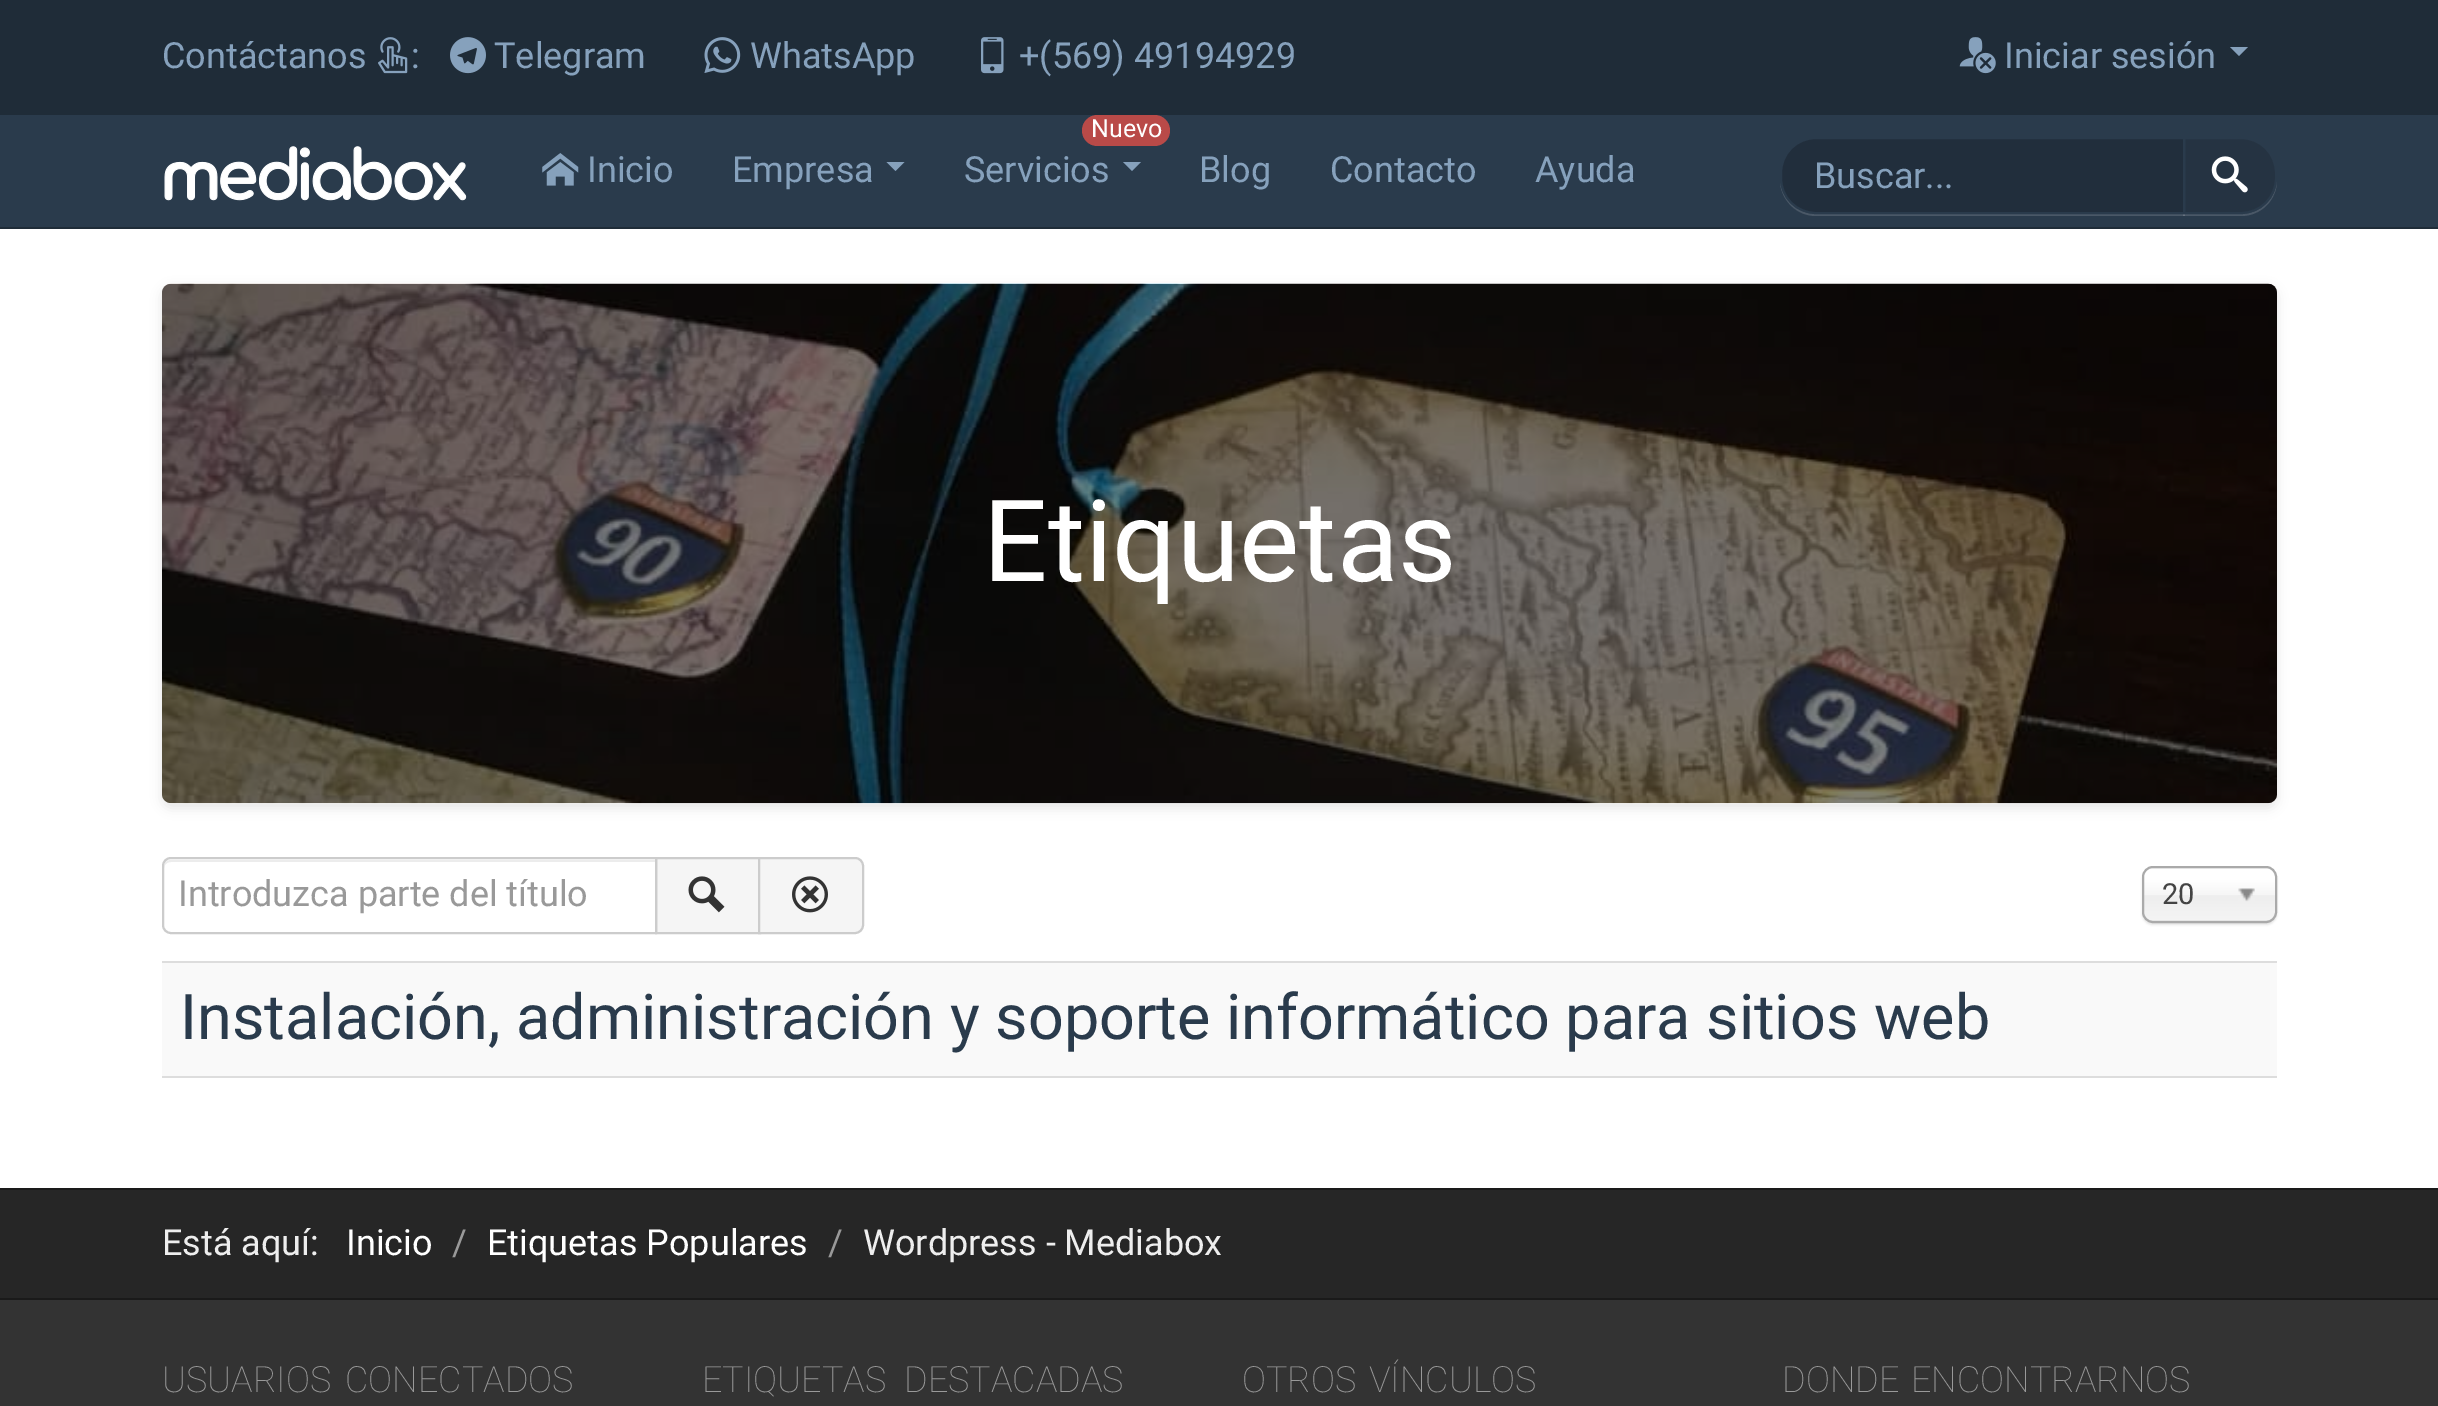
%!PS
<< /PageSize [2438 1406] /PageUsesTransparency true >> setpagedevice
/m/moveto load def
/l/rlineto load def
/c/rcurveto load def
/z/closepath load def
/f/fill load def
/s/stroke load def
/q/gsave load def
/Q_/grestore load def
/w/setlinewidth load def
/C { dup -16 bitshift 255 div exch dup -8 bitshift 255 and 255 div exch 255 and 255 div setrgbcolor } def
/F { [ exch dup neg 0 0 3 -1 roll 0 0 ] selectfont } def
/T { moveto show } def
/R { rectfill } def
/A { dup .setfillconstantalpha .setstrokeconstantalpha } def
/Q { 5 dict begin { /r /h /w /y /x } { exch def } forall
  x r add y moveto x w add y 2 copy h add r arct x w add y h add x 1 index r arct
  x y h add x y r arct x y 2 copy exch w add exch r arct closepath end } def
/S { 12 dict begin { /a /b /q /h /w /y /x } { exch def } forall gsave /was 0 def
  9 -2 -9 { dup b mul 4 div /e exch def 1 sub .425 mul 2.718 exch exp 1 add a .99 .min exch div /now exch def
    1 1 now sub 1 was sub div sub A /was now def
    w h .min e 2 mul add 0 gt { x e sub y e sub w e 2 mul add h e 2 mul add
      q e add b .6 mul add w h .min 2 div e add .min 0 .max Q fill } if } for grestore end } def
/I { 5 dict begin { /h /w /y /x /name } { exch def } forall
  gsave x y translate w h scale
  w h 8 [w 0 0 h 0 0] name (r) file false 3 colorimage grestore end } def
0 .pushpdf14devicefilter
0 1406 translate 1 -1 scale
4 setmiterlimit
16#FFFFFF C
0 0 2438 1406 R
16#1F2C38 C
0 0 2438 115 R
/Roboto-Regular 36 F
16#86A1BC C
(Contáctanos) 162 68 T
(1.rgb) 378 37 30 37 I
(:) 411 68 T
(2.rgb) 450 37 36 37 I
(Telegram) 494 68 T
(3.rgb) 704 37 37 36 I
(WhatsApp) 750 68 T
(4.rgb) 981 37 23 37 I
(+\(569\) 49194929) 1019 68 T
(5.rgb) 1959 37 37 37 I
(Iniciar sesión) 2004 68 T
2230 47 m 18 0 l -9 9 l z f
16#2A3B4C C
0 115 2438 112 R
16#1F2C38 C
0 227 2438 2 R
(6.rgb) 164 146 303 55 I
(7.rgb) 542 153 37 33 I
16#86A1BC C
(Inicio) 587 182 T
(Empresa) 732 182 T
886.5 162 m 18 0 l -9 9 l z f
16#B94A48 C
1082 115 88 31 15.5 Q f
/Roboto-Regular 25 F
16#FFFFFF C
(Nuevo) 1091 137 T
/Roboto-Regular 36 F
16#86A1BC C
(Servicios) 964 182 T
1123 162 m 18 0 l -9 9 l z f
(Blog) 1199 182 T
(Contacto) 1330 182 T
(Ayuda) 1535 182 T
16#4A5867 C
2183 214 m 0 2 l 58 0 l 20 0 36 -16 36 -36 c 0 -2 l 0 20 -16 36 -36 36 c z f
16#253342 C
2184 138 m 57 0 l 19.5 0 35 15.5 35 35 c 0 5 l 0 19.5 -15.5 35 -35 35 c -57 0 l z q f Q_
16#2A3B4C C
2 w
s
0.15 A
16#FFFFFF C
1780 183 m 2 18 17 33 36 33 c 369 0 l 0 -76 l 0 74 l -369 0 l -18 0 -33 -14 -36 -31 c z f
1 A
16#212E3C C
1816 138 m 368 0 l 0 75 l -368 0 l -19.5 0 -35 -15.5 -35 -35 c 0 -5 l 0 -19.5 15.5 -35 35 -35 c z q f Q_
16#2A3B4C C
s
16#86A1BC C
(Buscar...) 1814 188 T
(8.rgb) 2211 156 37 37 I
16#000000 C
162 288 2115 520 9 5.5 .1 S
(9.rgb) 162 283 2115 521 I
0.5 A
162 284 2115 519 9 Q f
/Roboto-Regular 113.5 F
1 A
16#FFFFFF C
(Etiquetas) 983 581 T
16#F5F5F5 C
657 859 101 73 R
16#CCCCCC C
656 858 104 75 rectstroke
16#FFFFFF C
171 857 m 486 0 l 0 77 l -486 0 l -5 0 -9 -4 -9 -9 c 0 -59 l 0 -5 4 -9 9 -9 c z f
16#ECECEC C
171 862 m 484 0 l 0 -2 l -484 0 l -5 0 -7 4 -7 8 c 0 -3 3 -6 7 -6 c z f
16#CCCCCC C
171 858 m 485 0 l 0 75 l -485 0 l -4.5 0 -8 -3.5 -8 -8 c 0 -59 l 0 -4.5 3.5 -8 8 -8 c z s
/Roboto-Regular 36 F
16#999999 C
(Introduzca parte del título) 178 906 T
(10.rgb) 688 876 37 37 I
16#F5F5F5 C
759 858 m 96 0 l 4.5 0 8 3.5 8 8 c 0 59 l 0 4.5 -3.5 8 -8 8 c -96 0 l z q f Q_
16#CCCCCC C
s
(11.rgb) 792 876 36 37 I
16#000000 C
2142 869 135 56 11 1 .1 S
q 2144 869 131 51 9 Q clip newpath
<< /ShadingType 2 /ColorSpace /DeviceRGB /Coords [2210 869 2210 920] /Extend [true true] /Function << /FunctionType 3 /Domain [0 1] /Functions [<< /FunctionType 2 /Domain [0 1] /C0 [1 1 1] /C1 [1 1 1] /N 1 >> << /FunctionType 2 /Domain [0 1] /C0 [1 1 1] /C1 [.965 .965 .965] /N 1 >> << /FunctionType 2 /Domain [0 1] /C0 [.965 .965 .965] /C1 [.933 .933 .933] /N 1 >> << /FunctionType 2 /Domain [0 1] /C0 [.933 .933 .933] /C1 [.957 .957 .957] /N 1 >>] /Bounds [.2 .5 .52] /Encode [0 1 0 1 0 1 0 1] >> >> shfill Q_
16#AAAAAA C
2143 867 133 55 10 Q s
/Roboto-Regular 29 F
16#444444 C
(20) 2162 904 T
(12.rgb) 2238 888 17 14 I
16#DDDDDD C
162 961 2115 2 R
16#F9F9F9 C
162 963 2115 113 R
16#DDDDDD C
162 1076 2115 2 R
/Roboto-Regular 63 F
16#2A3B4C C
(Instalación, administración y soporte informático para sitios web) 180 1039 T
16#333333 C
0 1300 2438 106 R
16#262626 C
0 1190 2438 108 R
16#1A1A1A C
0 1188 2438 2 R
/Roboto-Regular 36 F
16#EEEEEE C
(Está aquí:) 162 1255 T
16#FFFFFF C
(Inicio) 346 1255 T
16#999999 C
(/) 452 1255 T
16#FFFFFF C
(Etiquetas Populares) 487 1255 T
16#999999 C
(/) 828 1255 T
16#EEEEEE C
(Wordpress - Mediabox) 863 1255 T
16#1A1A1A C
0 1298 2438 2 R
/Roboto-Thin 36 F
16#999999 C
(USUARIOS) 162 1392 T
(CONECTADOS) 345 1392 T
(ETIQUETAS) 702 1392 T
(DESTACADAS) 904 1392 T
(OTROS) 1242 1392 T
(VÍNCULOS) 1369 1392 T
(DONDE) 1782 1392 T
(ENCONTRARNOS) 1911 1392 T
.poppdf14devicefilter showpage
